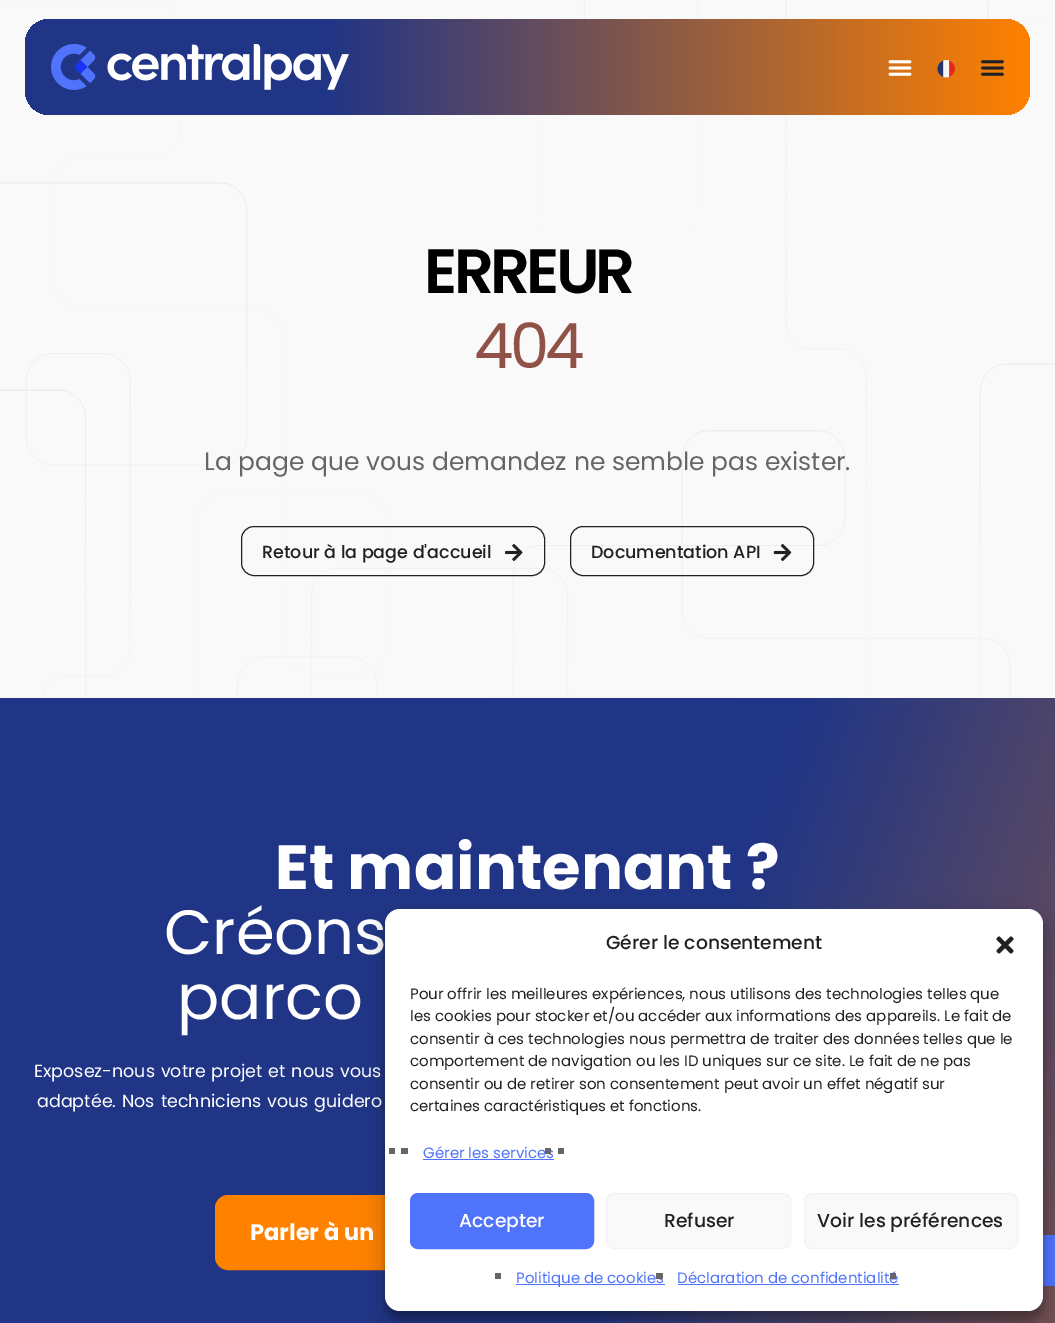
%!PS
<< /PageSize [1055 1323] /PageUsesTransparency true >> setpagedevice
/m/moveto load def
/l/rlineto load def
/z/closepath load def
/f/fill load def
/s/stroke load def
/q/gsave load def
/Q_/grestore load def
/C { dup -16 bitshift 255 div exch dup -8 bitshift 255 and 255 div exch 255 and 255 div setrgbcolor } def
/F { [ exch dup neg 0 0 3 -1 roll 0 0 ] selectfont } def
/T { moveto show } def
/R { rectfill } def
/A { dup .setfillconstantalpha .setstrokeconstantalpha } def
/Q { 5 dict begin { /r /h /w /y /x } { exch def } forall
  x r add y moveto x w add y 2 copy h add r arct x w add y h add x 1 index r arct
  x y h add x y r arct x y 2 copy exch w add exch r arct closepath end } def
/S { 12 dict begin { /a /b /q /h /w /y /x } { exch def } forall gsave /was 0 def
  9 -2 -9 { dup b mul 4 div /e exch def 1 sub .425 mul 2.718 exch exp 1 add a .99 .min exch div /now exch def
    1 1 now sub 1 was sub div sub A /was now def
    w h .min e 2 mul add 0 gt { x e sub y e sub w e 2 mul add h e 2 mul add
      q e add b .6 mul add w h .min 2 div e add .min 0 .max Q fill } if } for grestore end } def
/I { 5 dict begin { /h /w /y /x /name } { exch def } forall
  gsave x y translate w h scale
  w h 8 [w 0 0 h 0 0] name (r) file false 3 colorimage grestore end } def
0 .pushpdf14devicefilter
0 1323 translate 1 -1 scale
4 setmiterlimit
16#F9F9F9 C
0 0 1055 1323 R
(5.rgb) 0 0 1055 698 I
q 25 19 1005 96 25 Q clip newpath
<< /ShadingType 2 /ColorSpace /DeviceRGB /Coords [25 67 1030 67] /Extend [true true] /Function << /FunctionType 3 /Domain [0 1] /Functions [<< /FunctionType 2 /Domain [0 1] /C0 [.125 .208 .525] /C1 [.125 .208 .525] /N 1 >> << /FunctionType 2 /Domain [0 1] /C0 [.125 .208 .525] /C1 [1 .506 0] /N 1 >>] /Bounds [.3] /Encode [0 1 0 1] >> >> shfill Q_
(1.rgb) 51 44 298 46 I
(2.rgb) 888 60 24 16 I
(3.rgb) 937 60 18 18 I
(4.rgb) 981 60 23 16 I
q 0 698 m 1055 0 l 0 625 l -1055 0 l z clip newpath
<< /ShadingType 2 /ColorSpace /DeviceRGB /Coords [-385 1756 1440 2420] /Extend [true true] /Function << /FunctionType 3 /Domain [0 1] /Functions [<< /FunctionType 2 /Domain [0 1] /C0 [.125 .208 .525] /C1 [.125 .208 .525] /N 1 >> << /FunctionType 2 /Domain [0 1] /C0 [.125 .208 .525] /C1 [1 .506 0] /N 1 >>] /Bounds [.39] /Encode [0 1 0 1] >> >> shfill Q_
16#5073FB C
1043 1235 12 51 R
/Poppins-SemiBold 62.5 F
16#000000 C
424 293 m -3.75 0 (ERREUR) ashow
/Poppins-Regular 62.5 F
16#905147 C
474 368 m -3.75 0 (404) ashow
/Poppins-Regular 25 F
16#666666 C
(La page que vous demandez ne semble pas exister.) 204 470 T
16#212121 C
241.5 526.5 303 49 12.5 Q s
/Poppins-Medium 17.5 F
(Retour à la page d'accueil) 262 558 T
(6.rgb) 505 544 18 17 I
570.5 526.5 243 49 12.5 Q s
(Documentation API) 591 558 T
(7.rgb) 773 544 19 17 I
/Poppins-Bold 62.5 F
16#FFFFFF C
(Et maintenant ?) 275 889 T
/Poppins-Regular 62.5 F
(Créons) 164 954 T
(parco) 177 1019 T
/Poppins-Regular 17.5 F
34 1077 m 1.25 0 32 (Exposez-nous votre projet et nous vous) widthshow
37 1107 m 1.25 0 32 (adaptée. Nos techniciens vous guidero) widthshow
16#FF8100 C
215.5 1195.5 307 74 12.5 Q q f Q_
s
/Poppins-Bold 22.5 F
16#FFFFFF C
(Parler à un) 250 1240 T
16#000000 C
385 916 658 403 15 4 .23 S
385 921 658 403 15 12.5 .19 S
16#FFFFFF C
385 909 658 402 15 Q f
/Poppins-Medium 18.75 F
16#212121 C
(Gérer le consentement) 606 949 T
(8.rgb) 996 936 18 18 I
/Poppins-Regular 15 F
(Pour offrir les meilleures expériences, nous utilisons des technologies telles que) 410 999 T
(les cookies pour stocker et/ou accéder aux informations des appareils. Le fait de) 410 1021 T
(consentir à ces technologies nous permettra de traiter des données telles que le) 410 1044 T
(comportement de navigation ou les ID uniques sur ce site. Le fait de ne pas) 410 1066 T
(consentir ou de retirer son consentement peut avoir un effet négatif sur) 410 1089 T
(certaines caractéristiques et fonctions.) 410 1111 T
16#666666 C
389 1148 6 6 R
401 1148 7 6 R
16#5073FB C
(Gérer les services) 423 1158 T
423 1159 131 1 R
16#666666 C
545 1148 6 6 R
558 1148 6 6 R
16#5073FB C
410.5 1193.5 183 55 7.5 Q q f Q_
s
/Poppins-Medium 18.75 F
16#FFFFFF C
(Accepter) 459 1227 T
16#F9F9F9 C
606.5 1193.5 184 55 7.5 Q q f Q_
16#F2F2F2 C
s
16#212121 C
(Refuser) 664 1227 T
16#F9F9F9 C
804.5 1193.5 213 55 7.5 Q q f Q_
16#F2F2F2 C
s
16#212121 C
(Voir les préférences) 817 1227 T
16#666666 C
495 1273 6 6 R
16#5073FB C
516 1284 149 1 R
/Poppins-Regular 15 F
(Politique de cookies) 516 1283 T
16#666666 C
656 1273 7 6 R
16#5073FB C
(Déclaration de confidentialité) 677 1283 T
678 1284 221 1 R
16#666666 C
890 1273 6 6 R
.poppdf14devicefilter showpage
